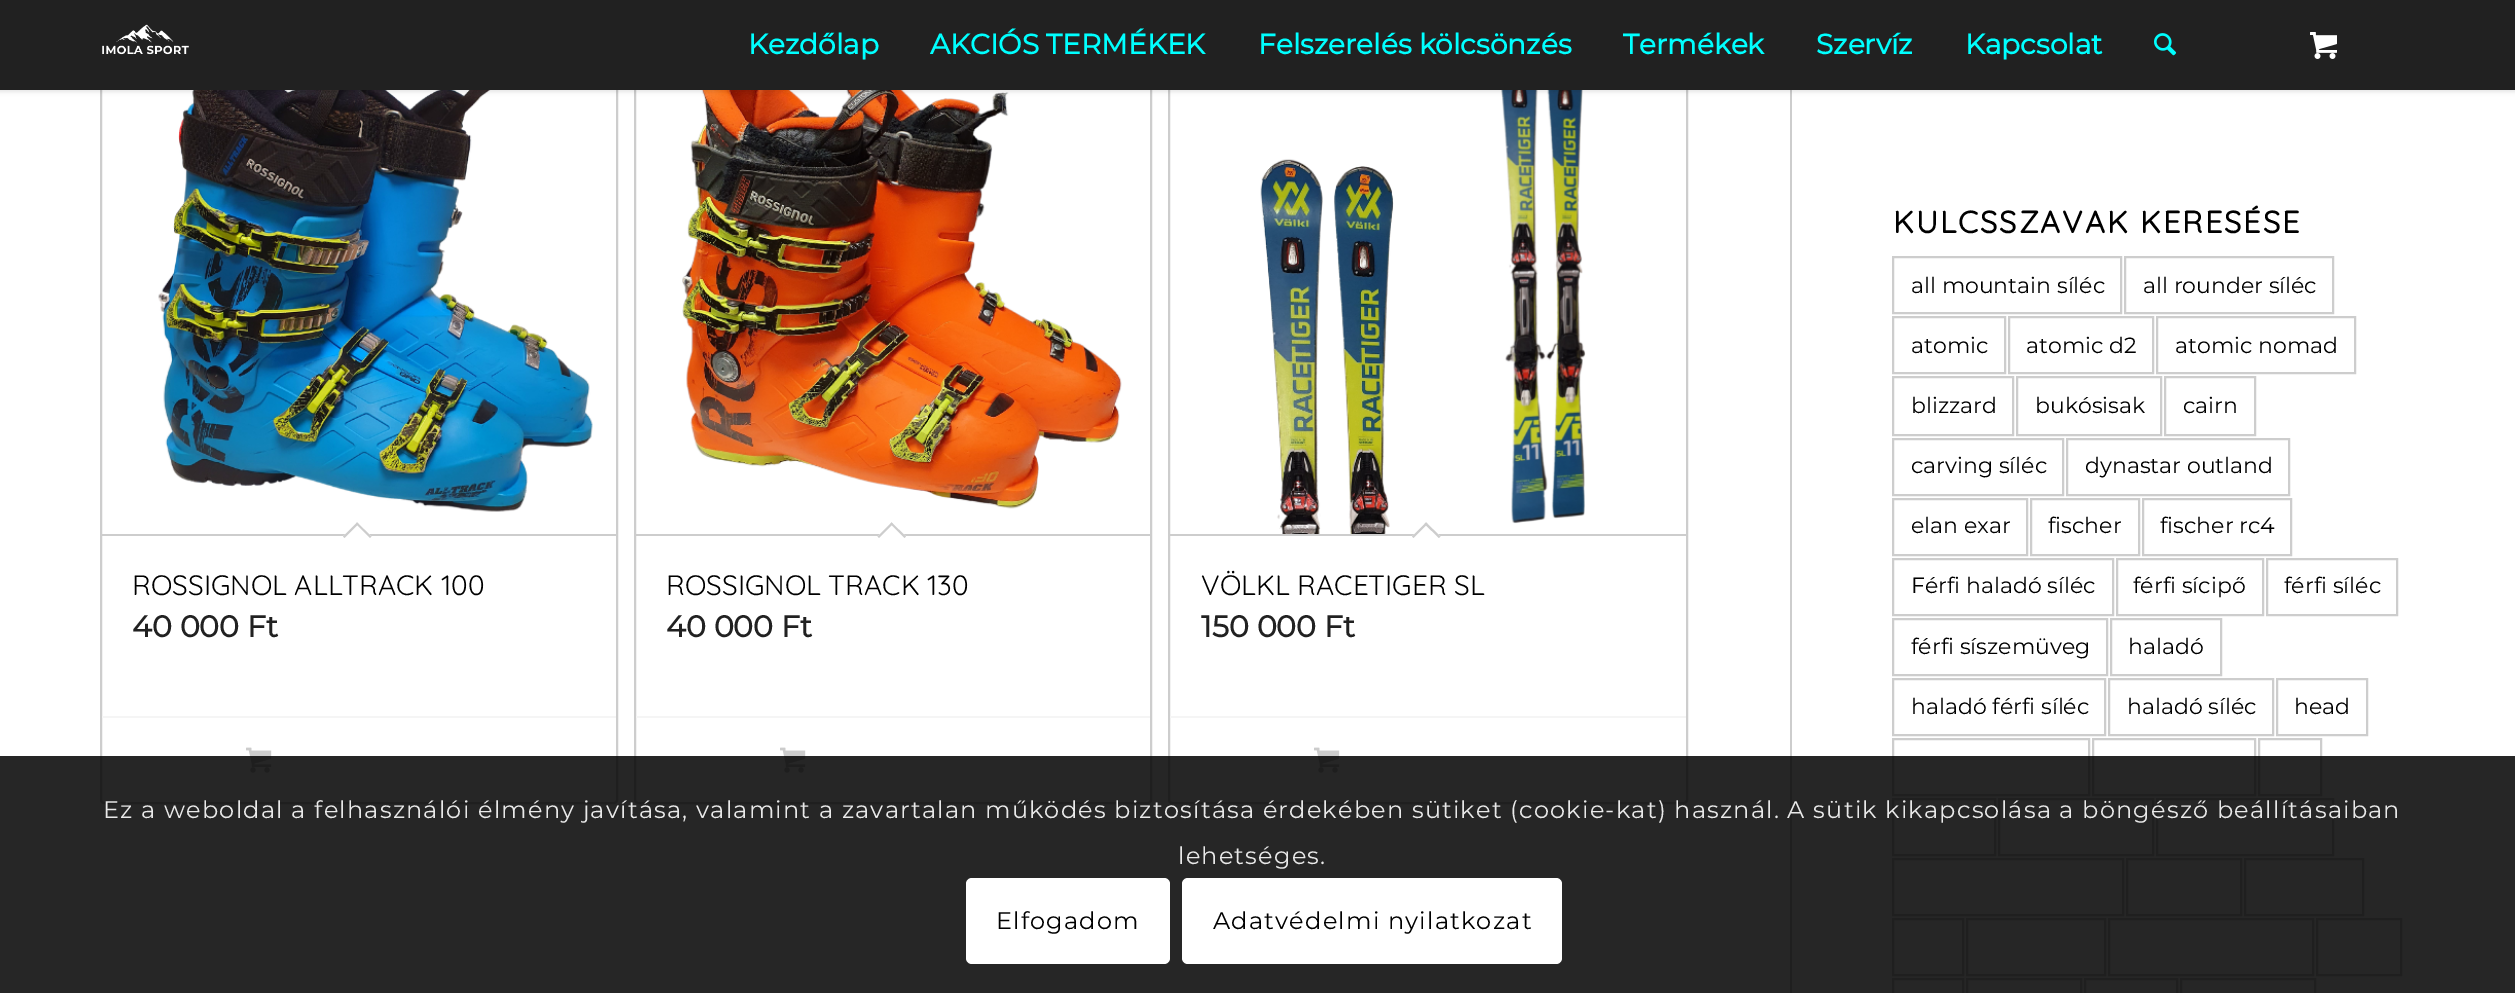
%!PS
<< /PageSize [2515 993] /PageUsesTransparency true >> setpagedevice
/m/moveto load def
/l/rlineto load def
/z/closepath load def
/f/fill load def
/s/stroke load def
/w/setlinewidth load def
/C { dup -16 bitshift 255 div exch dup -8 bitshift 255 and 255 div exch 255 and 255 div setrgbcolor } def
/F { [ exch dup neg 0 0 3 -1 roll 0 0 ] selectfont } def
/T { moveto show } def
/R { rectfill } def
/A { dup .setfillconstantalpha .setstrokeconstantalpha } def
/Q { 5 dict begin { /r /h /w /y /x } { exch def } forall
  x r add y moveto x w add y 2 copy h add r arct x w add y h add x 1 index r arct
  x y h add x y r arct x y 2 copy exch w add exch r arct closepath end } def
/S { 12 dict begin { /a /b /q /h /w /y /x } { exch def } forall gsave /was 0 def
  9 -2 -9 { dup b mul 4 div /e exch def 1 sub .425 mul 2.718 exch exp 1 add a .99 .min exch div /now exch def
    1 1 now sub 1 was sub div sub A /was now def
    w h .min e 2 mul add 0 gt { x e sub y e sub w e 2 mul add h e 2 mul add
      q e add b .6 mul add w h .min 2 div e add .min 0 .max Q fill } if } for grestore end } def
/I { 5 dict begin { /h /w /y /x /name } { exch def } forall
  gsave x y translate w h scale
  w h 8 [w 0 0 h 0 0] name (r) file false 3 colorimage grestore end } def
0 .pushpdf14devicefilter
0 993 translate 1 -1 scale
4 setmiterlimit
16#FFFFFF C
0 0 2515 993 R
16#CDCDCD C
2 w
101 19 516 784 3 Q s
(4.rgb) 158 90 435 422 I
635 19 516 784 3 Q s
(6.rgb) 682 90 440 419 I
1169 19 518 784 3 Q s
(7.rgb) 1260 90 326 444 I
1790 90 2 903 R
16#000000 C
-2 -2 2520 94 0 2 .1 S
16#212121 C
0 0 2515 90 R
(1.rgb) 102 24 87 31 I
/Montserrat-Bold 28 F
16#00FFFF C
(Kezdőlap) 748 54 T
(AKCIÓS TERMÉKEK) 930 54 T
(Felszerelés kölcsönzés) 1258 54 T
(Termékek) 1623 54 T
(Szervíz) 1816 54 T
(Kapcsolat) 1965 54 T
(2.rgb) 2154 33 23 23 I
(3.rgb) 2310 32 27 27 I
16#CDCDCD C
102 534 514 2 R
16#FFFFFF C
357 522.5 m 14.5 14 l -14.5 14 l -14 -14 l z f
16#CDCDCD C
357 522.5 m 14.5 14 l -1.5 1.5 l -14 -14 l z f
357 522.5 m 1.5 1.5 l -14 14 l -1.5 -1.5 l z f
/Quicksand-Light 28 F
16#000000 C
(ROSSIGNOL ALLTRACK 100) 132 595 T
/Montserrat-Bold 30 F
16#212121 C
(40 000 Ft) 132 637 T
16#F5F5F5 C
102 716 514 2 R
(5.rgb) 246 747 26 26 I
16#CDCDCD C
636 534 514 2 R
16#FFFFFF C
891.5 522.5 m 14.5 14 l -14.5 14 l -14 -14 l z f
16#CDCDCD C
891.5 522.5 m 14.5 14 l -1.5 1.5 l -14 -14 l z f
891.5 522.5 m 1.5 1.5 l -14 14 l -1.5 -1.5 l z f
/Quicksand-Light 28 F
16#000000 C
(ROSSIGNOL TRACK 130) 666 595 T
/Montserrat-Bold 30 F
16#212121 C
(40 000 Ft) 666 637 T
16#F5F5F5 C
636 716 514 2 R
(5.rgb) 780 747 26 26 I
16#CDCDCD C
1170 534 516 2 R
16#FFFFFF C
1426 522.5 m 14.5 14 l -14.5 14 l -14 -14 l z f
16#CDCDCD C
1426 522.5 m 14.5 14 l -1.5 1.5 l -14.5 -14 l z f
1426 522.5 m 1.5 1.5 l -14 14 l -1.5 -1.5 l z f
/Quicksand-Light 28 F
16#000000 C
(VÖLKL RACETIGER SL) 1201 595 T
/Montserrat-Bold 30 F
16#212121 C
(150 000 Ft) 1201 637 T
16#F5F5F5 C
1170 716 516 2 R
(5.rgb) 1314 747 26 26 I
/Quicksand-Bold 30.75 F
16#000000 C
1893 233 m 2 0 (KULCSSZAVAK KERESÉSE) ashow
16#CDCDCD C
1893 257 228 56 rectstroke
/Montserrat-Thin 22 F
16#000000 C
(all mountain síléc) 1911 293 T
16#CDCDCD C
2125 257 208 56 rectstroke
16#000000 C
(all rounder síléc) 2143 293 T
16#CDCDCD C
1893 317 112 56 rectstroke
16#000000 C
(atomic) 1911 353 T
16#CDCDCD C
2009 317 144 56 rectstroke
16#000000 C
(atomic d2) 2026 353 T
16#CDCDCD C
2157 317 198 56 rectstroke
16#000000 C
(atomic nomad) 2175 353 T
16#CDCDCD C
1893 377 120 58 rectstroke
16#000000 C
(blizzard) 1911 413 T
16#CDCDCD C
2017 377 144 58 rectstroke
16#000000 C
(bukósisak) 2035 413 T
16#CDCDCD C
2165 377 90 58 rectstroke
16#000000 C
(cairn) 2183 413 T
16#CDCDCD C
1893 439 170 56 rectstroke
16#000000 C
(carving síléc) 1911 473 T
16#CDCDCD C
2067 439 222 56 rectstroke
16#000000 C
(dynastar outland) 2085 473 T
16#CDCDCD C
1893 499 134 56 rectstroke
16#000000 C
(elan exar) 1911 533 T
16#CDCDCD C
2031 499 108 56 rectstroke
16#000000 C
(fischer) 2048 533 T
16#CDCDCD C
2143 499 148 56 rectstroke
16#000000 C
(fischer rc4) 2160 533 T
16#CDCDCD C
1893 559 220 56 rectstroke
16#000000 C
(Férfi haladó síléc) 1911 593 T
16#CDCDCD C
2117 559 146 56 rectstroke
16#000000 C
(férfi sícipő) 2133 593 T
16#CDCDCD C
2267 559 130 56 rectstroke
16#000000 C
(férfi síléc) 2284 593 T
16#CDCDCD C
1893 619 214 56 rectstroke
16#000000 C
(férfi síszemüveg) 1911 654 T
16#CDCDCD C
2111 619 110 56 rectstroke
16#000000 C
(haladó) 2128 654 T
16#CDCDCD C
1893 679 212 56 rectstroke
16#000000 C
(haladó férfi síléc) 1911 714 T
16#CDCDCD C
2109 679 164 56 rectstroke
16#000000 C
(haladó síléc) 2127 714 T
16#CDCDCD C
2277 679 90 56 rectstroke
16#000000 C
(head) 2294 714 T
16#CDCDCD C
1893 739 196 56 rectstroke
2093 739 162 56 rectstroke
2259 739 62 56 rectstroke
1893 799 102 56 rectstroke
1999 799 154 56 rectstroke
2157 799 176 56 rectstroke
1893 859 230 56 rectstroke
2127 859 114 56 rectstroke
2245 859 118 56 rectstroke
1893 919 70 56 rectstroke
1967 919 138 56 rectstroke
2109 919 204 56 rectstroke
2317 919 84 56 rectstroke
1893 979 70 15 rectstroke
1967 979 114 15 rectstroke
2085 979 92 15 rectstroke
2181 979 134 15 rectstroke
0.85 A
16#000000 C
0 756 2515 237 R
/Montserrat-Thin 24 F
1 A
16#E9E9E9 C
103 818 m 1.2 0 (Ez a weboldal a felhasználói élmény javítása, valamint a zavartalan működés biztosítása érdekében sütiket \(cookie-kat\) használ. A sütik kikapcsolása a böngésző beállításaiban) ashow
1178 864 m 1.2 0 (lehetséges.) ashow
16#FFFFFF C
966 878 204 86 6 Q f
16#000000 C
996 929 m 1.2 0 (Elfogadom) ashow
16#FFFFFF C
1182 878 380 86 6 Q f
16#000000 C
1213 929 m 1.2 0 (Adatvédelmi nyilatkozat) ashow
.poppdf14devicefilter showpage
